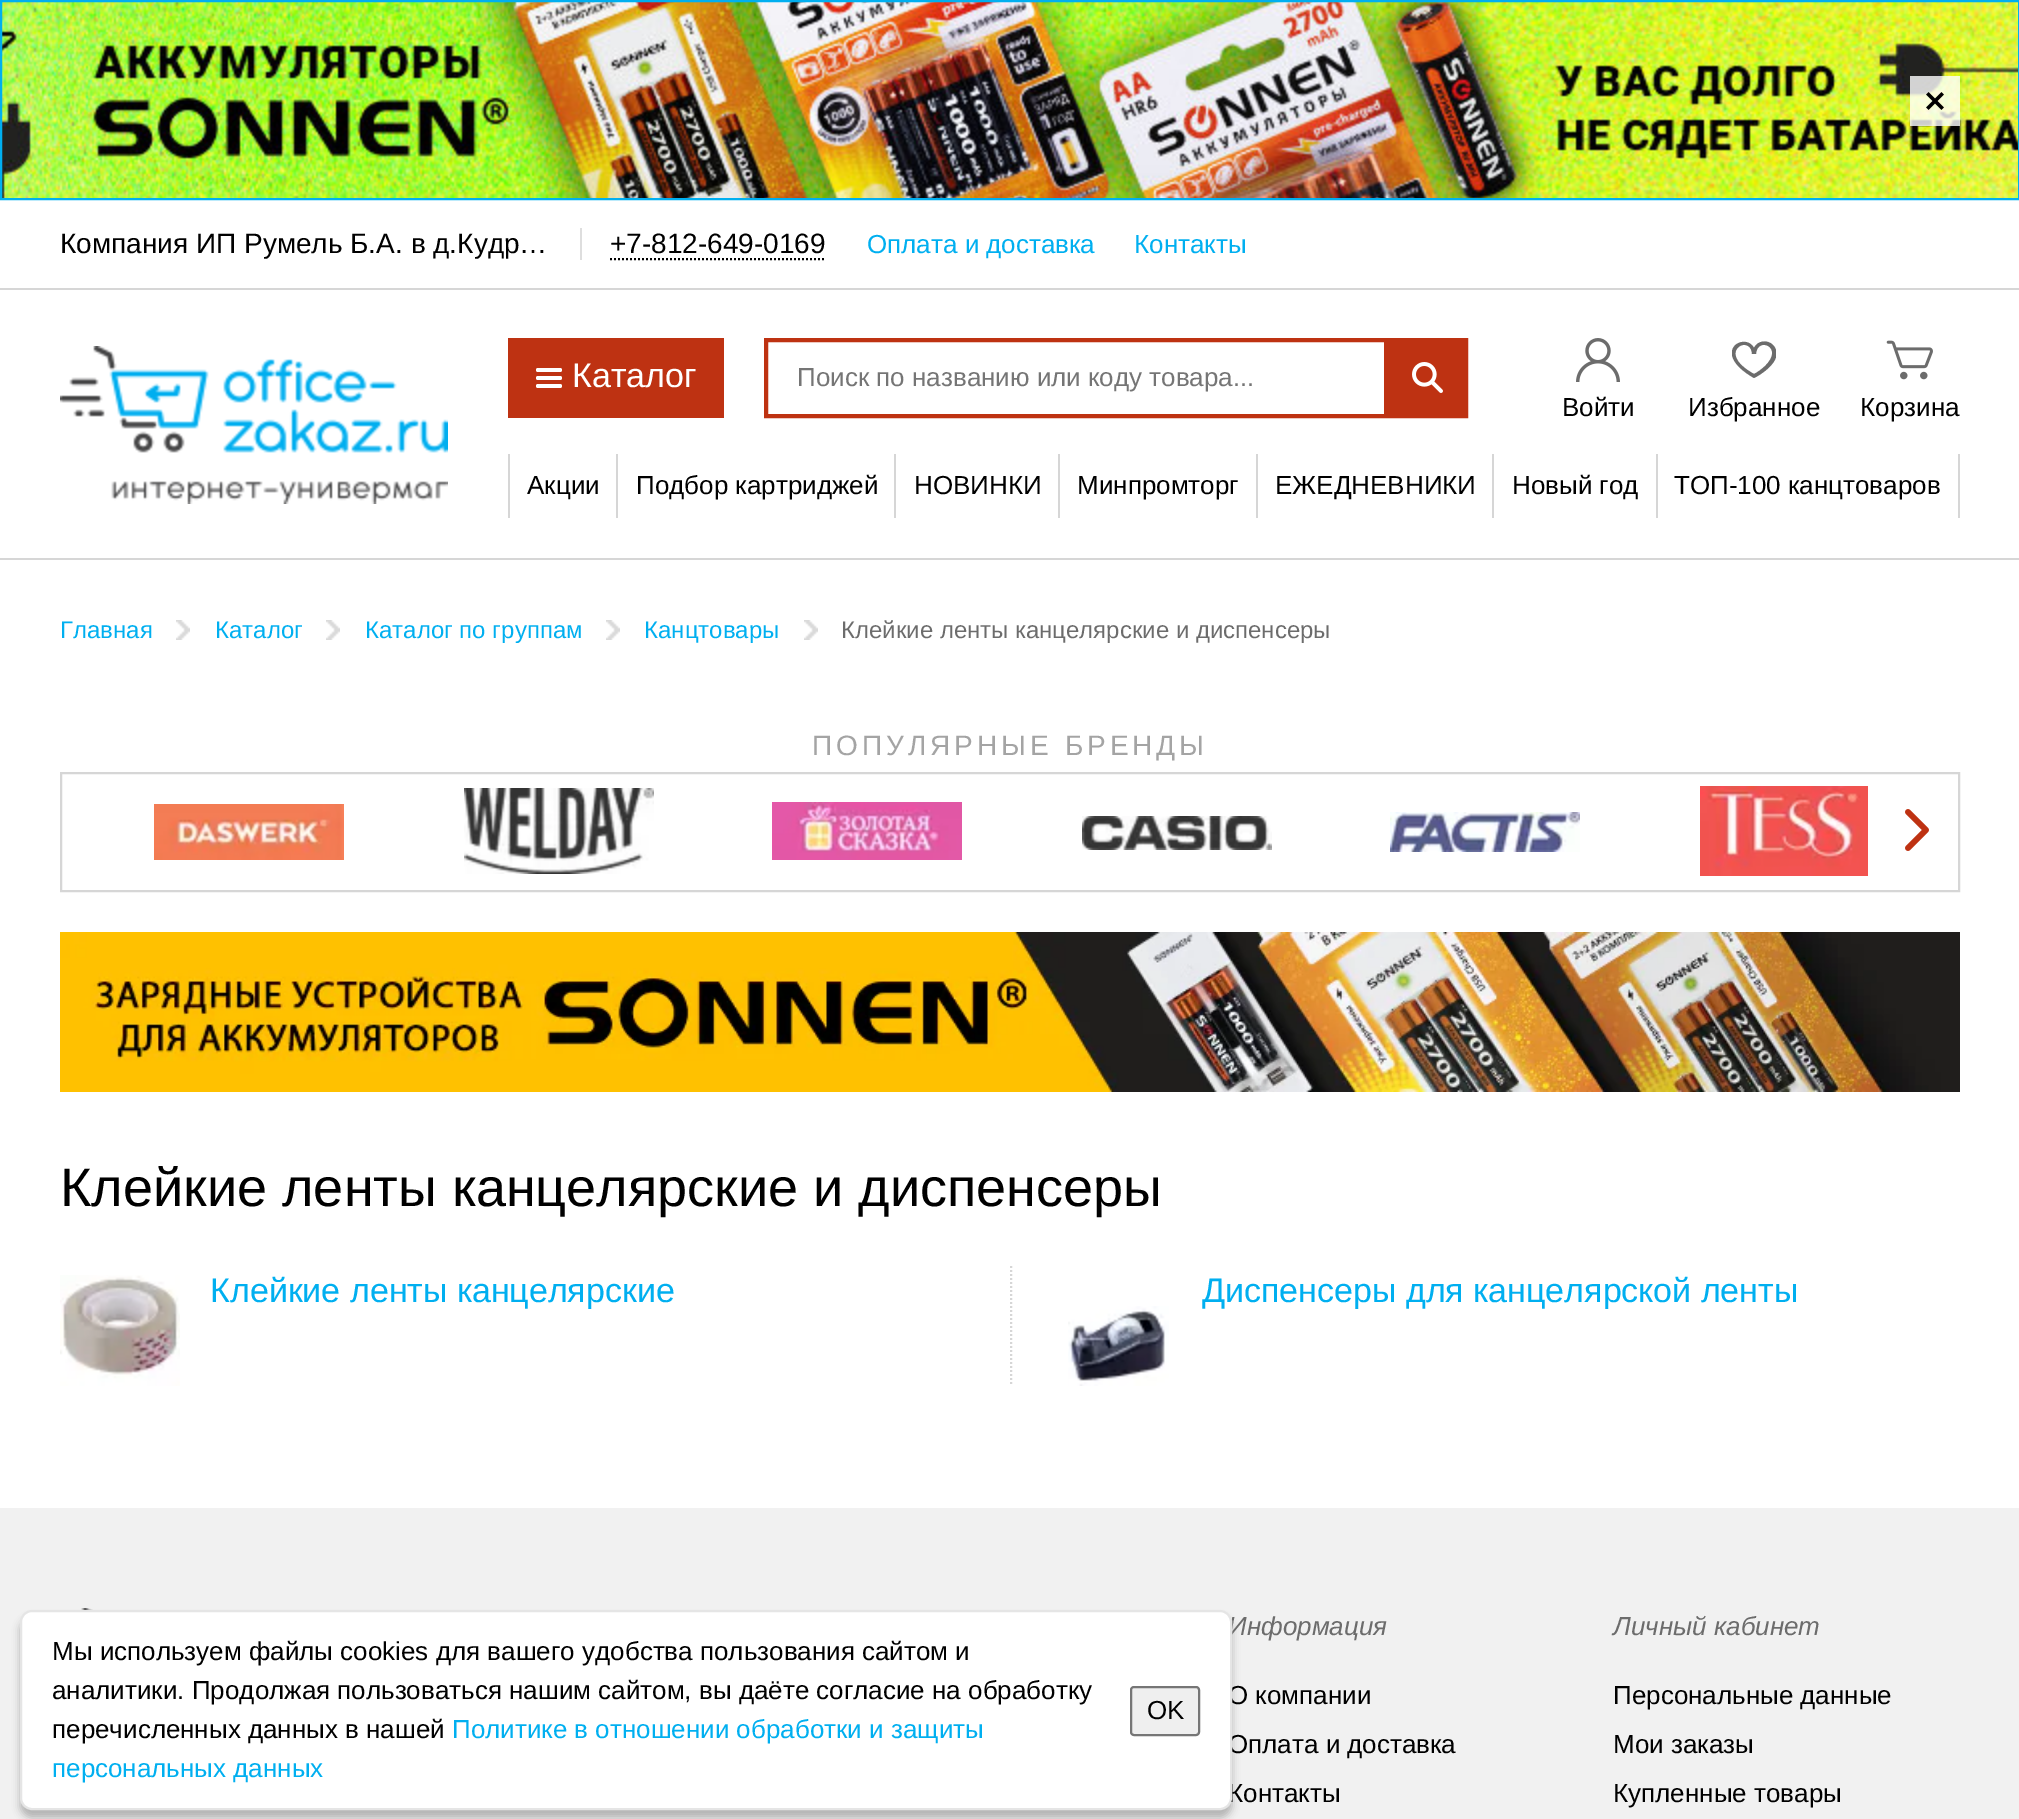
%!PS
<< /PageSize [2019 1819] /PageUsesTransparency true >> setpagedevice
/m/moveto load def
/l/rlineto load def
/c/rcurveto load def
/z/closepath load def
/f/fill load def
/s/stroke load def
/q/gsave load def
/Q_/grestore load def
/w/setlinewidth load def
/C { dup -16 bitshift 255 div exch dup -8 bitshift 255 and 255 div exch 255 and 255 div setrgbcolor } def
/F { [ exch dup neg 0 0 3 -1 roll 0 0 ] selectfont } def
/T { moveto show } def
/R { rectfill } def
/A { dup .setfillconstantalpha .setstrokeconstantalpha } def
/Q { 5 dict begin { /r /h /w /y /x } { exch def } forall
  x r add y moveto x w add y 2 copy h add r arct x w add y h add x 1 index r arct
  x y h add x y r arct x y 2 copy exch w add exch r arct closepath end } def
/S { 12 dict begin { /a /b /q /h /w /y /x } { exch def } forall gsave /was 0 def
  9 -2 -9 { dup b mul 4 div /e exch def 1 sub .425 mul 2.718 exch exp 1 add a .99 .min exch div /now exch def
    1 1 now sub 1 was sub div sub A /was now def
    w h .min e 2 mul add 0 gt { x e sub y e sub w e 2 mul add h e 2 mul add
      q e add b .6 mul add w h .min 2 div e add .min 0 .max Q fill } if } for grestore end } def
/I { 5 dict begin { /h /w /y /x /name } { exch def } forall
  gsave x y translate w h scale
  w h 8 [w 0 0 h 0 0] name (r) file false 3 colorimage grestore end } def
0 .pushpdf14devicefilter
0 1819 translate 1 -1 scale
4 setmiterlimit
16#FFFFFF C
0 0 2019 1819 R
(1.rgb) 2 2 2016 196 I
16#00AFF0 C
2 w
1 1 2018 198 rectstroke
0.8 A
16#FFFFFF C
1910 76 50 50 R
1 A
(2.rgb) 1926 92 18 18 I
16#D6D6D6 C
0 288 2019 2 R
/LiberationSans-Regular 28 F
16#000000 C
(Компания ИП Румель Б.А. в д.Кудр…) 60 253 T
16#DEDEDE C
580 228 2 32 R
16#000000 C
(+7-812-649-0169) 610 253 T
[2 2] 0 setdash
610 259 m 216 0 l s
/LiberationSans-Regular 26 F
16#00AFF0 C
(Оплата и доставка) 867 253 T
(Контакты) 1134 253 T
16#D6D6D6 C
0 558 2019 2 R
(3.rgb) 60 346 388 158 I
16#BE3212 C
508 338 216 80 R
16#FFFFFF C
536 376 26 4 2 Q f
536 368 26 4 2 Q f
536 384 26 4 2 Q f
/LiberationSans-Regular 34 F
(Каталог) 572 387 T
16#BE3212 C
4 w
[] 0 setdash
766 340 700 76 rectstroke
/LiberationSans-Regular 26 F
16#757575 C
(Поиск по названию или коду товара...) 797 386 T
16#BE3212 C
1384 342 80 72 R
(4.rgb) 1412 362 31 31 I
(5.rgb) 1576 338 44 44 I
16#000000 C
(Войти) 1562 416 T
q
1732 338 44 44 rectclip
16#6C6C6C C
1773 345 m -6 -6 -16 -4 -19 3 c -9 -17 -45 4 0 30 c 10 -5 31 -20 19 -33 c z 1765 366 m -3 3 -7 6 -11 8 c -40 -22 -3 -41 -2 -20 c 4 0 l 1 -18 29 -7 9 12 c z f
Q_
(Избранное) 1688 416 T
(6.rgb) 1886 340 47 40 I
(Корзина) 1860 416 T
16#D6D6D6 C
616 454 2 64 R
508 454 2 64 R
16#000000 C
(Акции) 527 494 T
16#D6D6D6 C
894 454 2 64 R
16#000000 C
(Подбор картриджей) 636 494 T
16#D6D6D6 C
1058 454 2 64 R
16#000000 C
(НОВИНКИ) 914 494 T
16#D6D6D6 C
1256 454 2 64 R
16#000000 C
(Минпромторг) 1077 494 T
16#D6D6D6 C
1492 454 2 64 R
16#000000 C
(ЕЖЕДНЕВНИКИ) 1275 494 T
16#D6D6D6 C
1656 454 2 64 R
16#000000 C
(Новый год) 1512 494 T
16#D6D6D6 C
1958 454 2 64 R
16#000000 C
(ТОП-100 канцтоваров) 1674 494 T
/LiberationSans-Regular 24 F
16#00AFF0 C
(Главная) 60 638 T
(7.rgb) 176 620 14 20 I
(Каталог) 215 638 T
(7.rgb) 326 620 14 20 I
(Каталог по группам) 365 638 T
(7.rgb) 606 620 14 20 I
(Канцтовары) 644 638 T
(7.rgb) 804 620 14 20 I
16#6C6C6C C
(Клейкие ленты канцелярские и диспенсеры) 841 638 T
/LiberationSans-Regular 28 F
16#A4A4A4 C
812 755 m 4 0 (ПОПУЛЯРНЫЕ БРЕНДЫ) ashow
16#D6D6D6 C
2 w
61 773 1898 118 rectstroke
(8.rgb) 154 804 190 56 I
(9.rgb) 464 788 190 86 I
(10.rgb) 772 802 190 58 I
(11.rgb) 1082 816 190 34 I
(12.rgb) 1390 812 190 40 I
(13.rgb) 1700 786 168 90 I
(14.rgb) 1905 809 24 42 I
(15.rgb) 60 932 1900 160 I
/LiberationSans-Regular 54 F
16#000000 C
(Клейкие ленты канцелярские и диспенсеры) 60 1206 T
(16.rgb) 60 1275 120 111 I
/LiberationSans-Regular 34 F
16#00AFF0 C
(Клейкие ленты канцелярские) 210 1302 T
16#D6D6D6 C
[2 2] 0 setdash
1011 1266 m 0 120 l s
16#00AFF0 C
(Диспенсеры для канцелярской ленты) 1202 1302 T
(17.rgb) 1068 1306 101 80 I
16#F1F1F1 C
0 1508 2019 311 R
(18.rgb) 81 1608 12 2 I
16#000000 C
20 1618 1212 200 12 4 .25 S
/LiberationSans-Italic 26 F
16#6C6C6C C
(Информация) 1228 1635 T
/LiberationSans-Regular 26 F
16#000000 C
(О компании) 1228 1704 T
(Оплата и доставка) 1228 1753 T
(Контакты) 1228 1802 T
16#FFFFFF C
21 1611 1210 198 11 Q q f Q_
16#E5E5E5 C
[] 0 setdash
s
16#000000 C
(Мы используем файлы cookies для вашего удобства пользования сайтом и) 52 1660 T
(аналитики. Продолжая пользоваться нашим сайтом, вы даёте согласие на обработку) 52 1699 T
(перечисленных данных в нашей) 52 1738 T
16#00AFF0 C
(Политике в отношении обработки и защиты) 452 1738 T
(персональных данных) 52 1777 T
16#EFEFEF C
1131 1687 68 48 3 Q q f Q_
16#767676 C
s
16#000000 C
(OK) 1147 1719 T
/LiberationSans-Italic 26 F
16#6C6C6C C
(Личный кабинет) 1613 1635 T
/LiberationSans-Regular 26 F
16#000000 C
(Персональные данные) 1613 1704 T
(Мои заказы) 1613 1753 T
(Купленные товары) 1613 1802 T
.poppdf14devicefilter showpage
